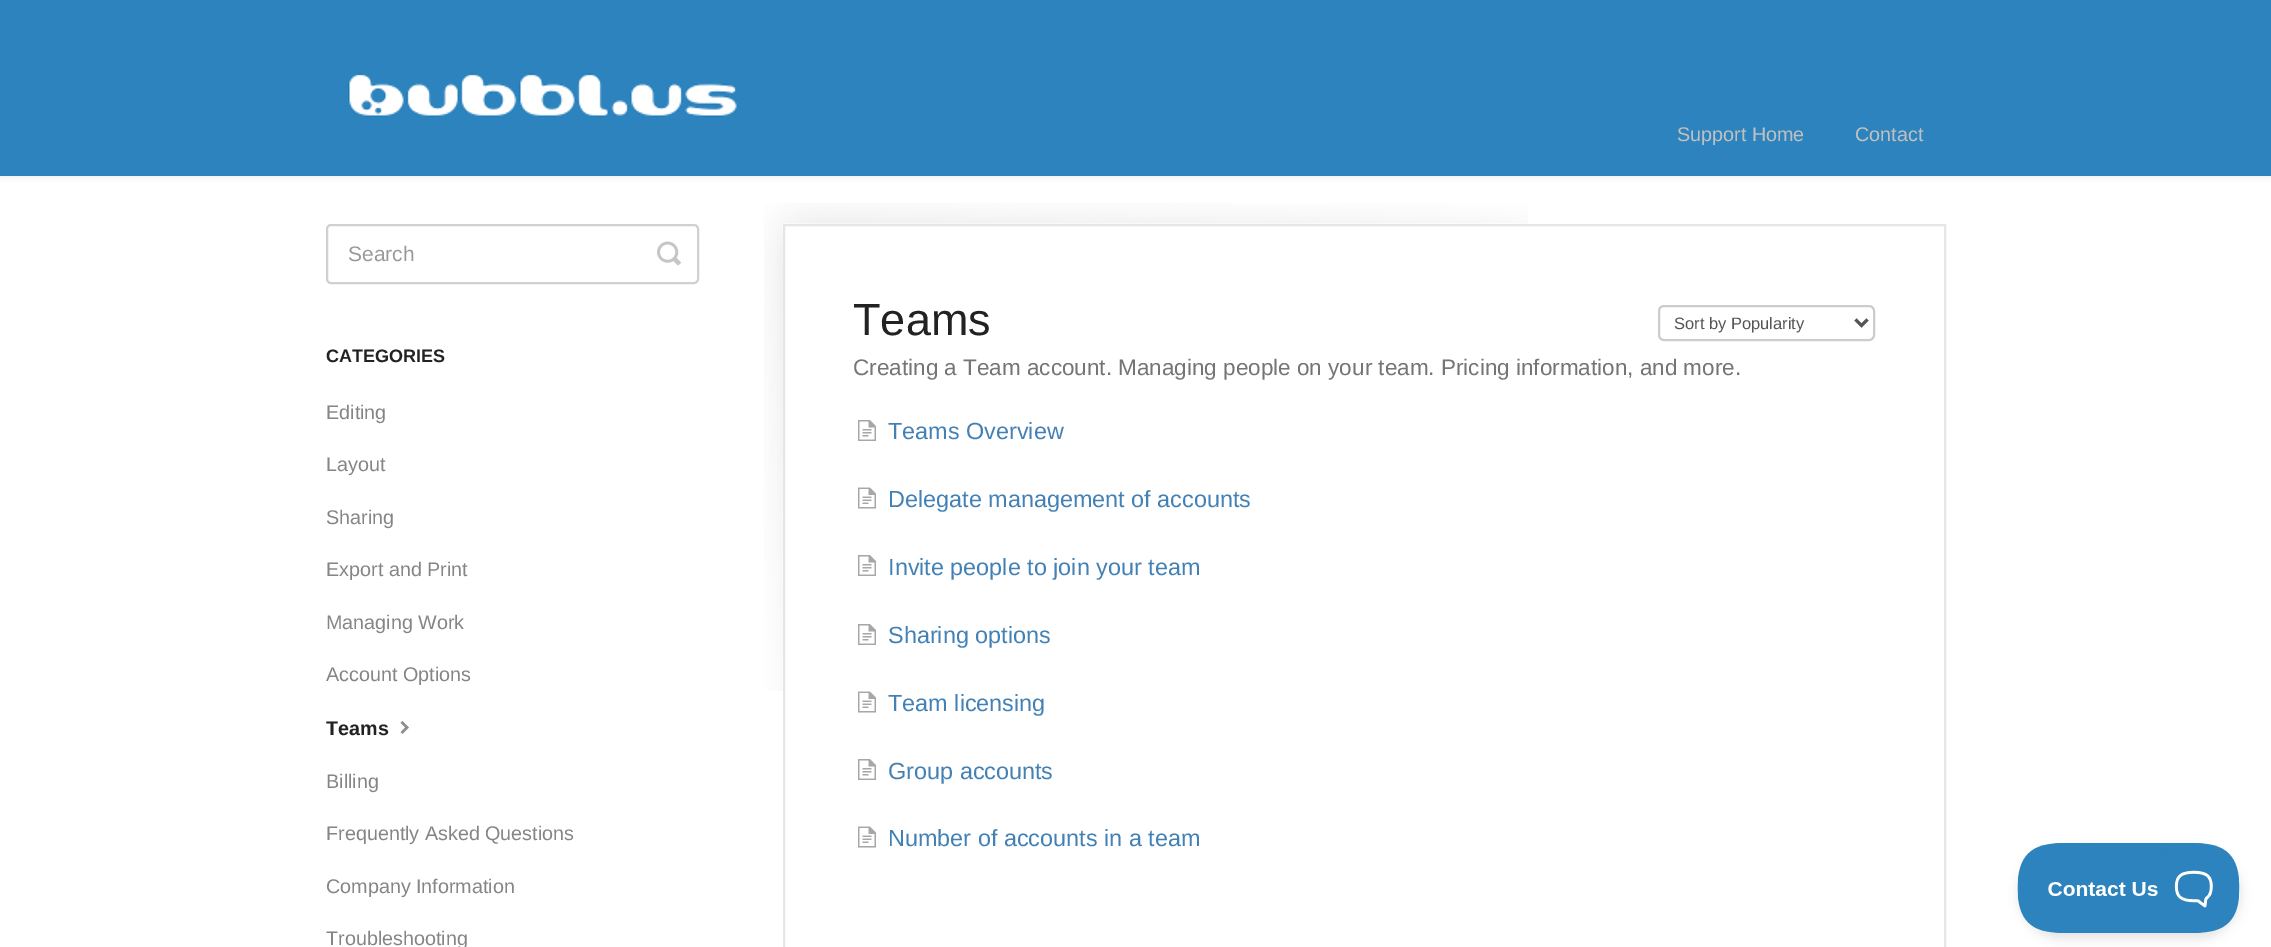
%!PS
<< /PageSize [2271 947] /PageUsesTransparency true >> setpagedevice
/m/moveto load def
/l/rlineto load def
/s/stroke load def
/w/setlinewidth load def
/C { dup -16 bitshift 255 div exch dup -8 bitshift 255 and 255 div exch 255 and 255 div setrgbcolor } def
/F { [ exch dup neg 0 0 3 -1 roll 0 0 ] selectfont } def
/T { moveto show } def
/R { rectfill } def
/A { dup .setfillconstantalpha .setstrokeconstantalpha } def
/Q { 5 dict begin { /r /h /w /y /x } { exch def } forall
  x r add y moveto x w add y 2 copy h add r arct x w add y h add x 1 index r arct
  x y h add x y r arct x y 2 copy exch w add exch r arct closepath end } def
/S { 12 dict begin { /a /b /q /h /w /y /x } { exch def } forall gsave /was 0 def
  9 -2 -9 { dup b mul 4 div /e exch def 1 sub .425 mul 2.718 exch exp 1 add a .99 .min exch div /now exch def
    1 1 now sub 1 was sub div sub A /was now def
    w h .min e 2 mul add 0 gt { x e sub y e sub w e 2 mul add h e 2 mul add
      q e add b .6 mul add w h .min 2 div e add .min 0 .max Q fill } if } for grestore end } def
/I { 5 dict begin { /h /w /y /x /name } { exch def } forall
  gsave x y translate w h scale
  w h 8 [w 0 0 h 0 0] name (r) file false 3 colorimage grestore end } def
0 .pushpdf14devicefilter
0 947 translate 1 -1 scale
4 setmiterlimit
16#FFFFFF C
0 0 2271 947 R
16#000000 C
0 2 2271 175 0 3 .07 S
16#2D83BD C
0 0 2271 176 R
(1.rgb) 348 73 390 44 I
/LiberationSans-Regular 19.75 F
16#C0C0C0 C
(Support Home) 1677 141 T
(Contact) 1855 141 T
16#D0D0D0 C
2 w
327 225 371 58 4 Q s
/LiberationSans-Regular 21 F
16#999999 C
(Search) 348 261 T
(2.rgb) 657 241 24 25 I
/LiberationSans-Bold 18 F
16#222222 C
(CATEGORIES) 326 362 T
/LiberationSans-Regular 19.75 F
16#858585 C
(Editing) 326 419 T
(Layout) 326 471 T
(Sharing) 326 524 T
(Export and Print) 326 576 T
(Managing Work) 326 629 T
(Account Options) 326 681 T
/LiberationSans-Bold 19.75 F
16#222222 C
(Teams) 326 735 T
(3.rgb) 400 721 9 13 I
/LiberationSans-Regular 19.75 F
16#858585 C
(Billing) 326 788 T
(Frequently Asked Questions) 326 840 T
(Company Information) 326 893 T
(Troubleshooting) 326 945 T
(4.rgb) 764 203 764 488 I
16#E9E5E5 C
784 225 1161 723 rectstroke
/LiberationSans-Regular 45 F
16#222222 C
(Teams) 853 335 T
16#CCCCCC C
1659 306 215 34 5 Q s
16#555555 C
3 w
1855.5 319.5 m 6 6 l 6 -6 l s
/LiberationSans-Regular 16.5 F
(Sort by Popularity) 1674 329 T
/LiberationSans-Regular 22.5 F
16#757575 C
(Creating a Team account. Managing people on your team. Pricing information, and more.) 853 375 T
(5.rgb) 858 420 18 21 I
/LiberationSans-Regular 23.4 F
16#4381B5 C
(Teams Overview) 888 439 T
(6.rgb) 858 487 18 22 I
(Delegate management of accounts) 888 507 T
(5.rgb) 858 555 18 21 I
(Invite people to join your team) 888 575 T
(5.rgb) 858 624 18 21 I
(Sharing options) 888 643 T
(6.rgb) 858 691 18 22 I
(Team licensing) 888 711 T
(5.rgb) 858 759 18 21 I
(Group accounts) 888 779 T
(6.rgb) 858 826 18 22 I
(Number of accounts in a team) 888 846 T
16#000000 C
2018 849 223 90 45 5 .1 S
(7.rgb) 2017 843 223 90 I
.poppdf14devicefilter showpage
